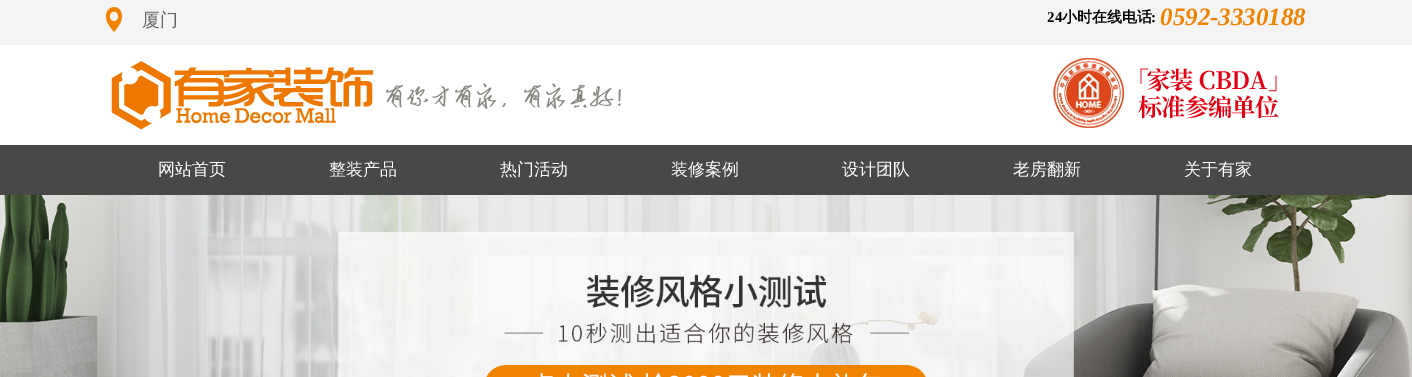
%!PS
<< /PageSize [1412 377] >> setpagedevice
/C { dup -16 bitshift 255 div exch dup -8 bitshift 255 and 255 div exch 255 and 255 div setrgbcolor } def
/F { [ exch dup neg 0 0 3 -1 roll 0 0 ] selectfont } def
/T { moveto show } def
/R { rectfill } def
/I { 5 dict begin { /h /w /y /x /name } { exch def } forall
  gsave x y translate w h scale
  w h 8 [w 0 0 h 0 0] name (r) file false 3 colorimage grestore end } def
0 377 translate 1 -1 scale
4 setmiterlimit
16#FFFFFF C
0 0 1412 377 R
16#F4F4F4 C
0 0 1412 45 R
(1.rgb) 106 7 16 25 I
/WenQuanYiZenHei-Medium 18 F
16#666666 C
(厦门) 142 26 T
/LiberationSerif-Bold 15 F
16#000000 C
(24) 1047 22 T
/WenQuanYiZenHei-Bold 15 F
(小时在线电话) 1062 22 T
/LiberationSerif-Bold 15 F
(:) 1151 22 T
/LiberationSerif-BoldItalic 25 F
16#F18200 C
(0592-3330188) 1160 25 T
(2.rgb) 111 61 510 69 I
(3.rgb) 1053 58 226 70 I
16#484848 C
0 145 1412 50 R
/WenQuanYiZenHei-Medium 17 F
16#FFFFFF C
(网站首页) 158 175 T
(整装产品) 329 175 T
(热门活动) 500 175 T
(装修案例) 671 175 T
(设计团队) 842 175 T
(老房翻新) 1013 175 T
(关于有家) 1184 175 T
(4.rgb) 0 195 1412 159 I
(5.rgb) 0 354 1412 23 I
showpage
